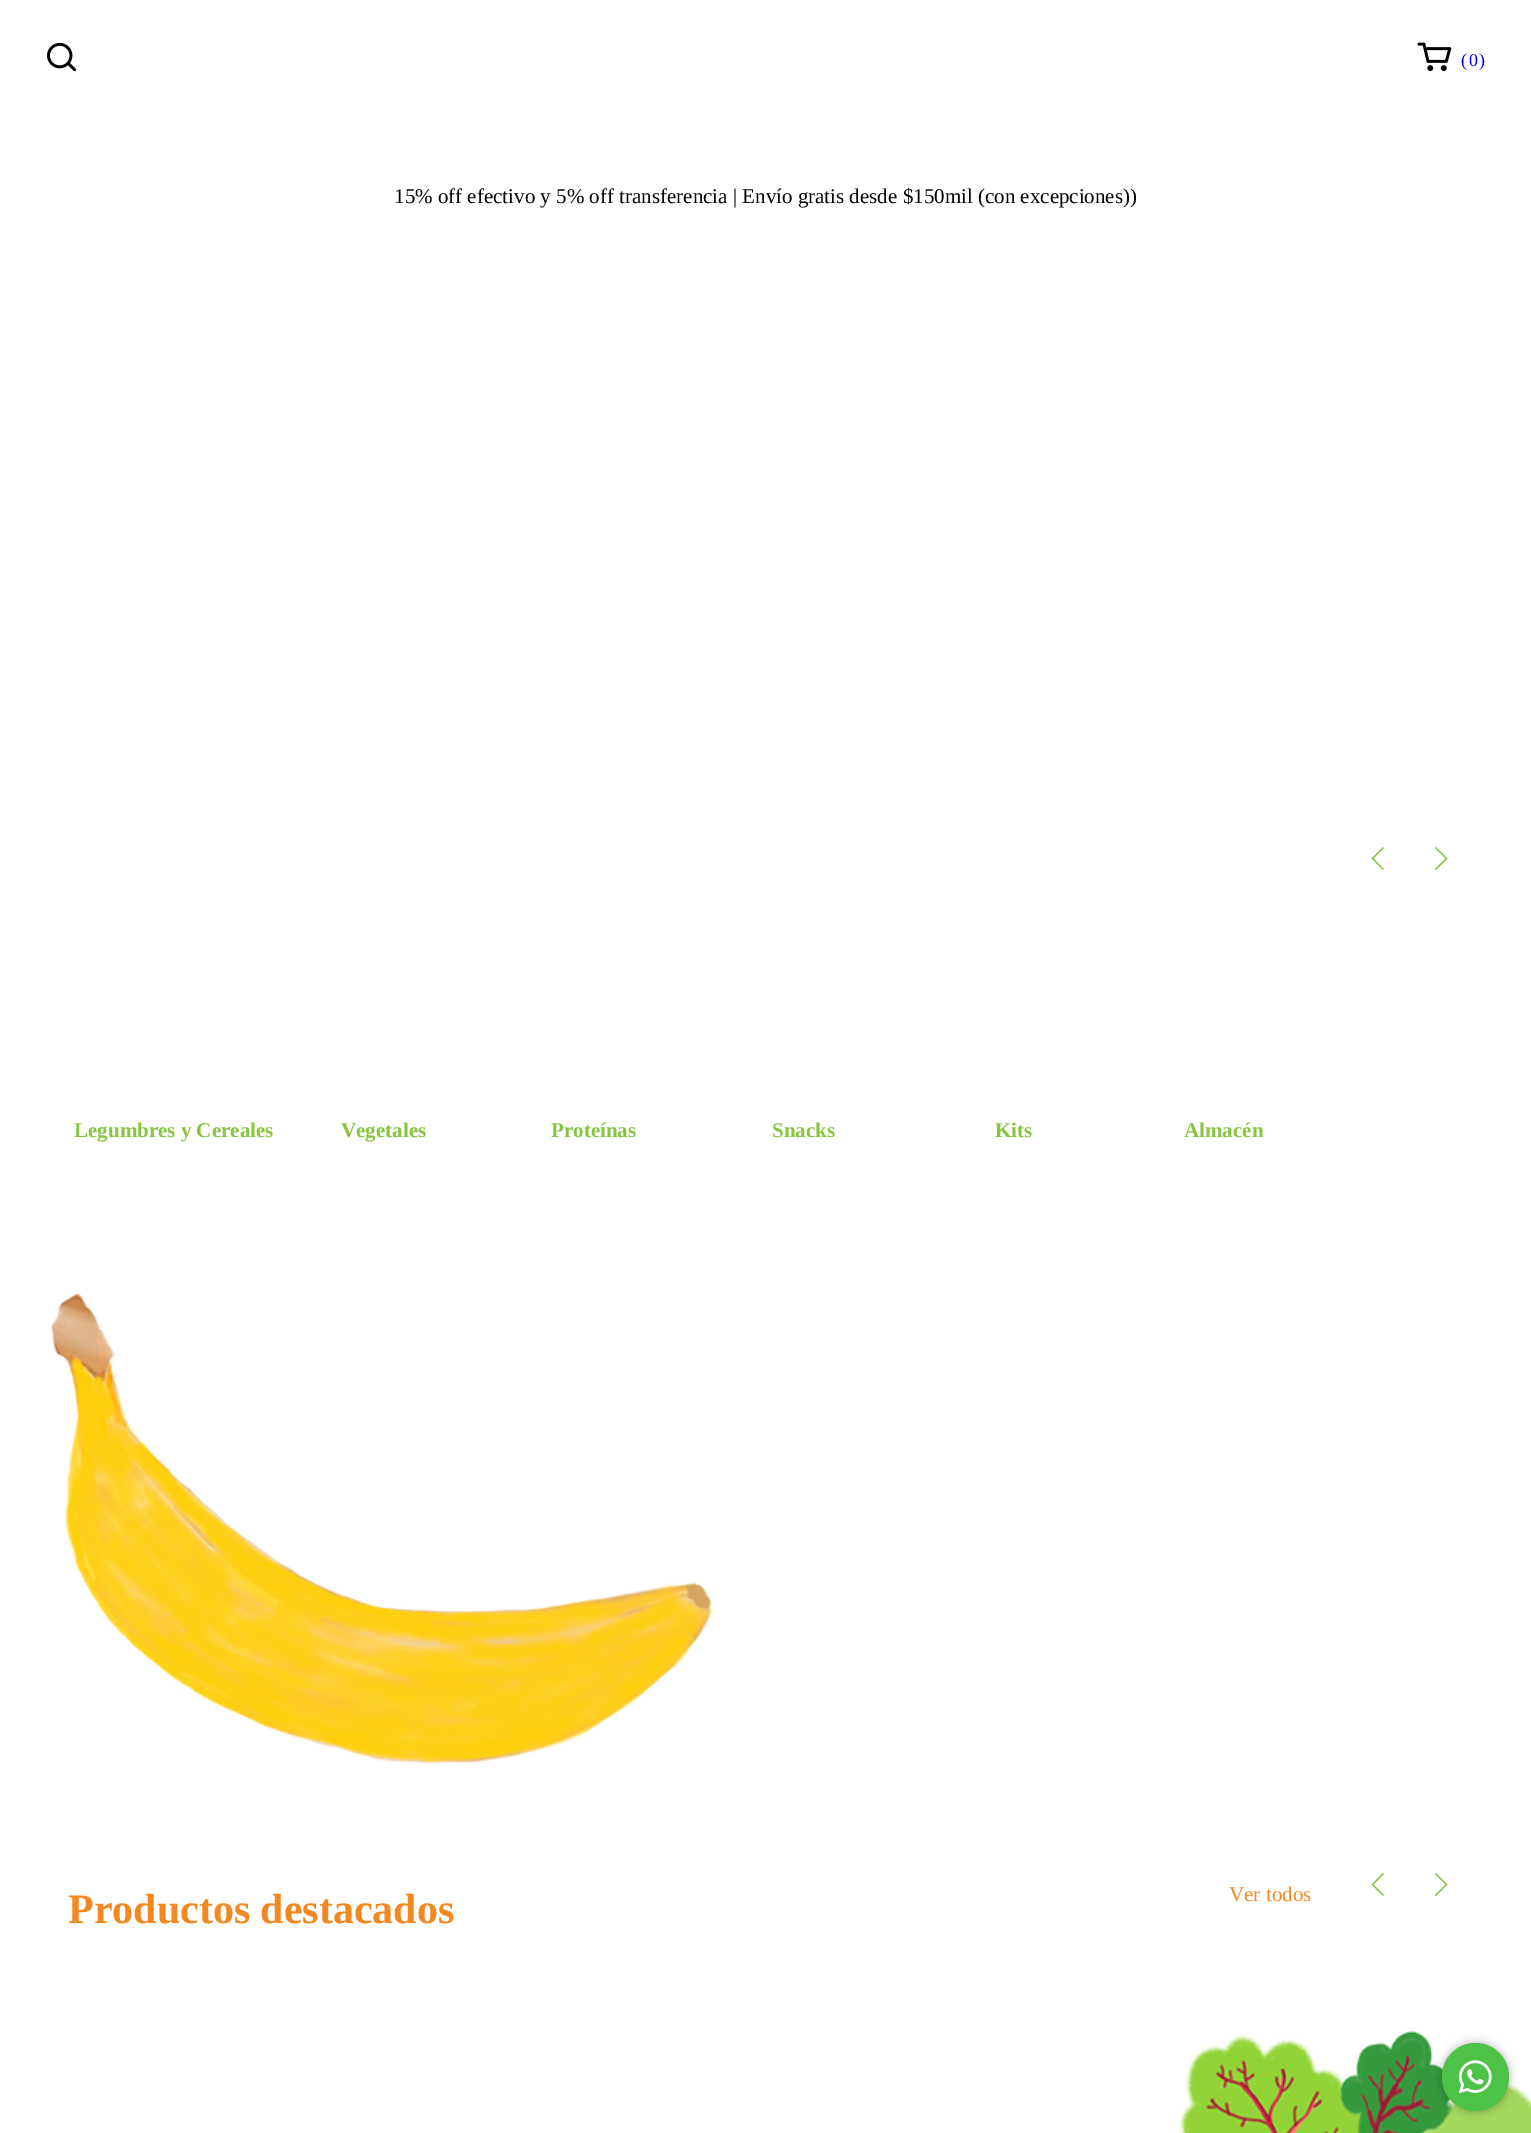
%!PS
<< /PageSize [1531 2133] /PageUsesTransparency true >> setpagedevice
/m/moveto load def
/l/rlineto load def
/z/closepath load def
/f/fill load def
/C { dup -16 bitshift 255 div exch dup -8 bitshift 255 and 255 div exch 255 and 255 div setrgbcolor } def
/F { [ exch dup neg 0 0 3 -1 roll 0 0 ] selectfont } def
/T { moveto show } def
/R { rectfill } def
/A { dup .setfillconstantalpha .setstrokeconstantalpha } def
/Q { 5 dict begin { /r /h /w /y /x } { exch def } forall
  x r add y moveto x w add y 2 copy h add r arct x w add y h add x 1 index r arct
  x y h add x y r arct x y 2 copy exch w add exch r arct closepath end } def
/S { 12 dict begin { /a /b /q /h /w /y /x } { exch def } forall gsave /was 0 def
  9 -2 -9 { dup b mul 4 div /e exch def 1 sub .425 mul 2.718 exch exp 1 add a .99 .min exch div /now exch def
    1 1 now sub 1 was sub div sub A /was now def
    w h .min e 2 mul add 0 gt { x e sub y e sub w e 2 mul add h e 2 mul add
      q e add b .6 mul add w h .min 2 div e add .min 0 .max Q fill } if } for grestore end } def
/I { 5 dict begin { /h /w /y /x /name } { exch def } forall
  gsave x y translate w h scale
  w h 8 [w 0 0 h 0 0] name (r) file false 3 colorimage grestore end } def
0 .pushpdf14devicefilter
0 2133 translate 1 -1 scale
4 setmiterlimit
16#FFFFFF C
0 0 1531 2133 R
(1.rgb) 1179 2030 352 103 I
(2.rgb) 47 42 29 30 I
(3.rgb) 1417 42 35 30 I
/LiberationSerif-Regular 18 F
16#0000EE C
(\() 1461 66 T
(0) 1469 66 T
(\)) 1479 66 T
/LiberationSerif-Regular 21 F
16#000000 C
(15% off efectivo y 5% off transferencia | Envío gratis desde $150mil \(con excepciones\)\)) 394 203 T
16#85C142 C
1384 869 m -1 1 l -11.5 -11.5 l 11.5 -11.5 l 1 1 l -10.5 10.5 l z f
1445.5 858.5 m -10.5 -10.5 l 1 -1 l 11.5 11.5 l -11.5 11.5 l -1 -1 l z f
/LiberationSerif-Bold 21 F
16#87C440 C
(Legumbres y Cereales) 74 1137 T
(Vegetales) 341 1137 T
(Proteínas) 551 1137 T
(Snacks) 772 1137 T
(Kits) 995 1137 T
(Almacén) 1184 1137 T
(4.rgb) 50 1293 664 472 I
/LiberationSerif-Bold 42 F
16#F48820 C
(Productos destacados) 68 1923 T
/LiberationSerif-Regular 21 F
(Ver todos) 1229 1901 T
16#85C142 C
1384 1895 m -1 1 l -11.5 -11.5 l 11.5 -11.5 l 1 1 l -10.5 10.5 l z f
1445.5 1884.5 m -10.5 -10.5 l 1 -1 l 11.5 11.5 l -11.5 11.5 l -1 -1 l z f
16#000000 C
1442 2043 67 68 33.5 4.5 .3 S
16#4DC247 C
1442 2043 67 68 33.5 Q f
(5.rgb) 1458 2060 34 34 I
.poppdf14devicefilter showpage
